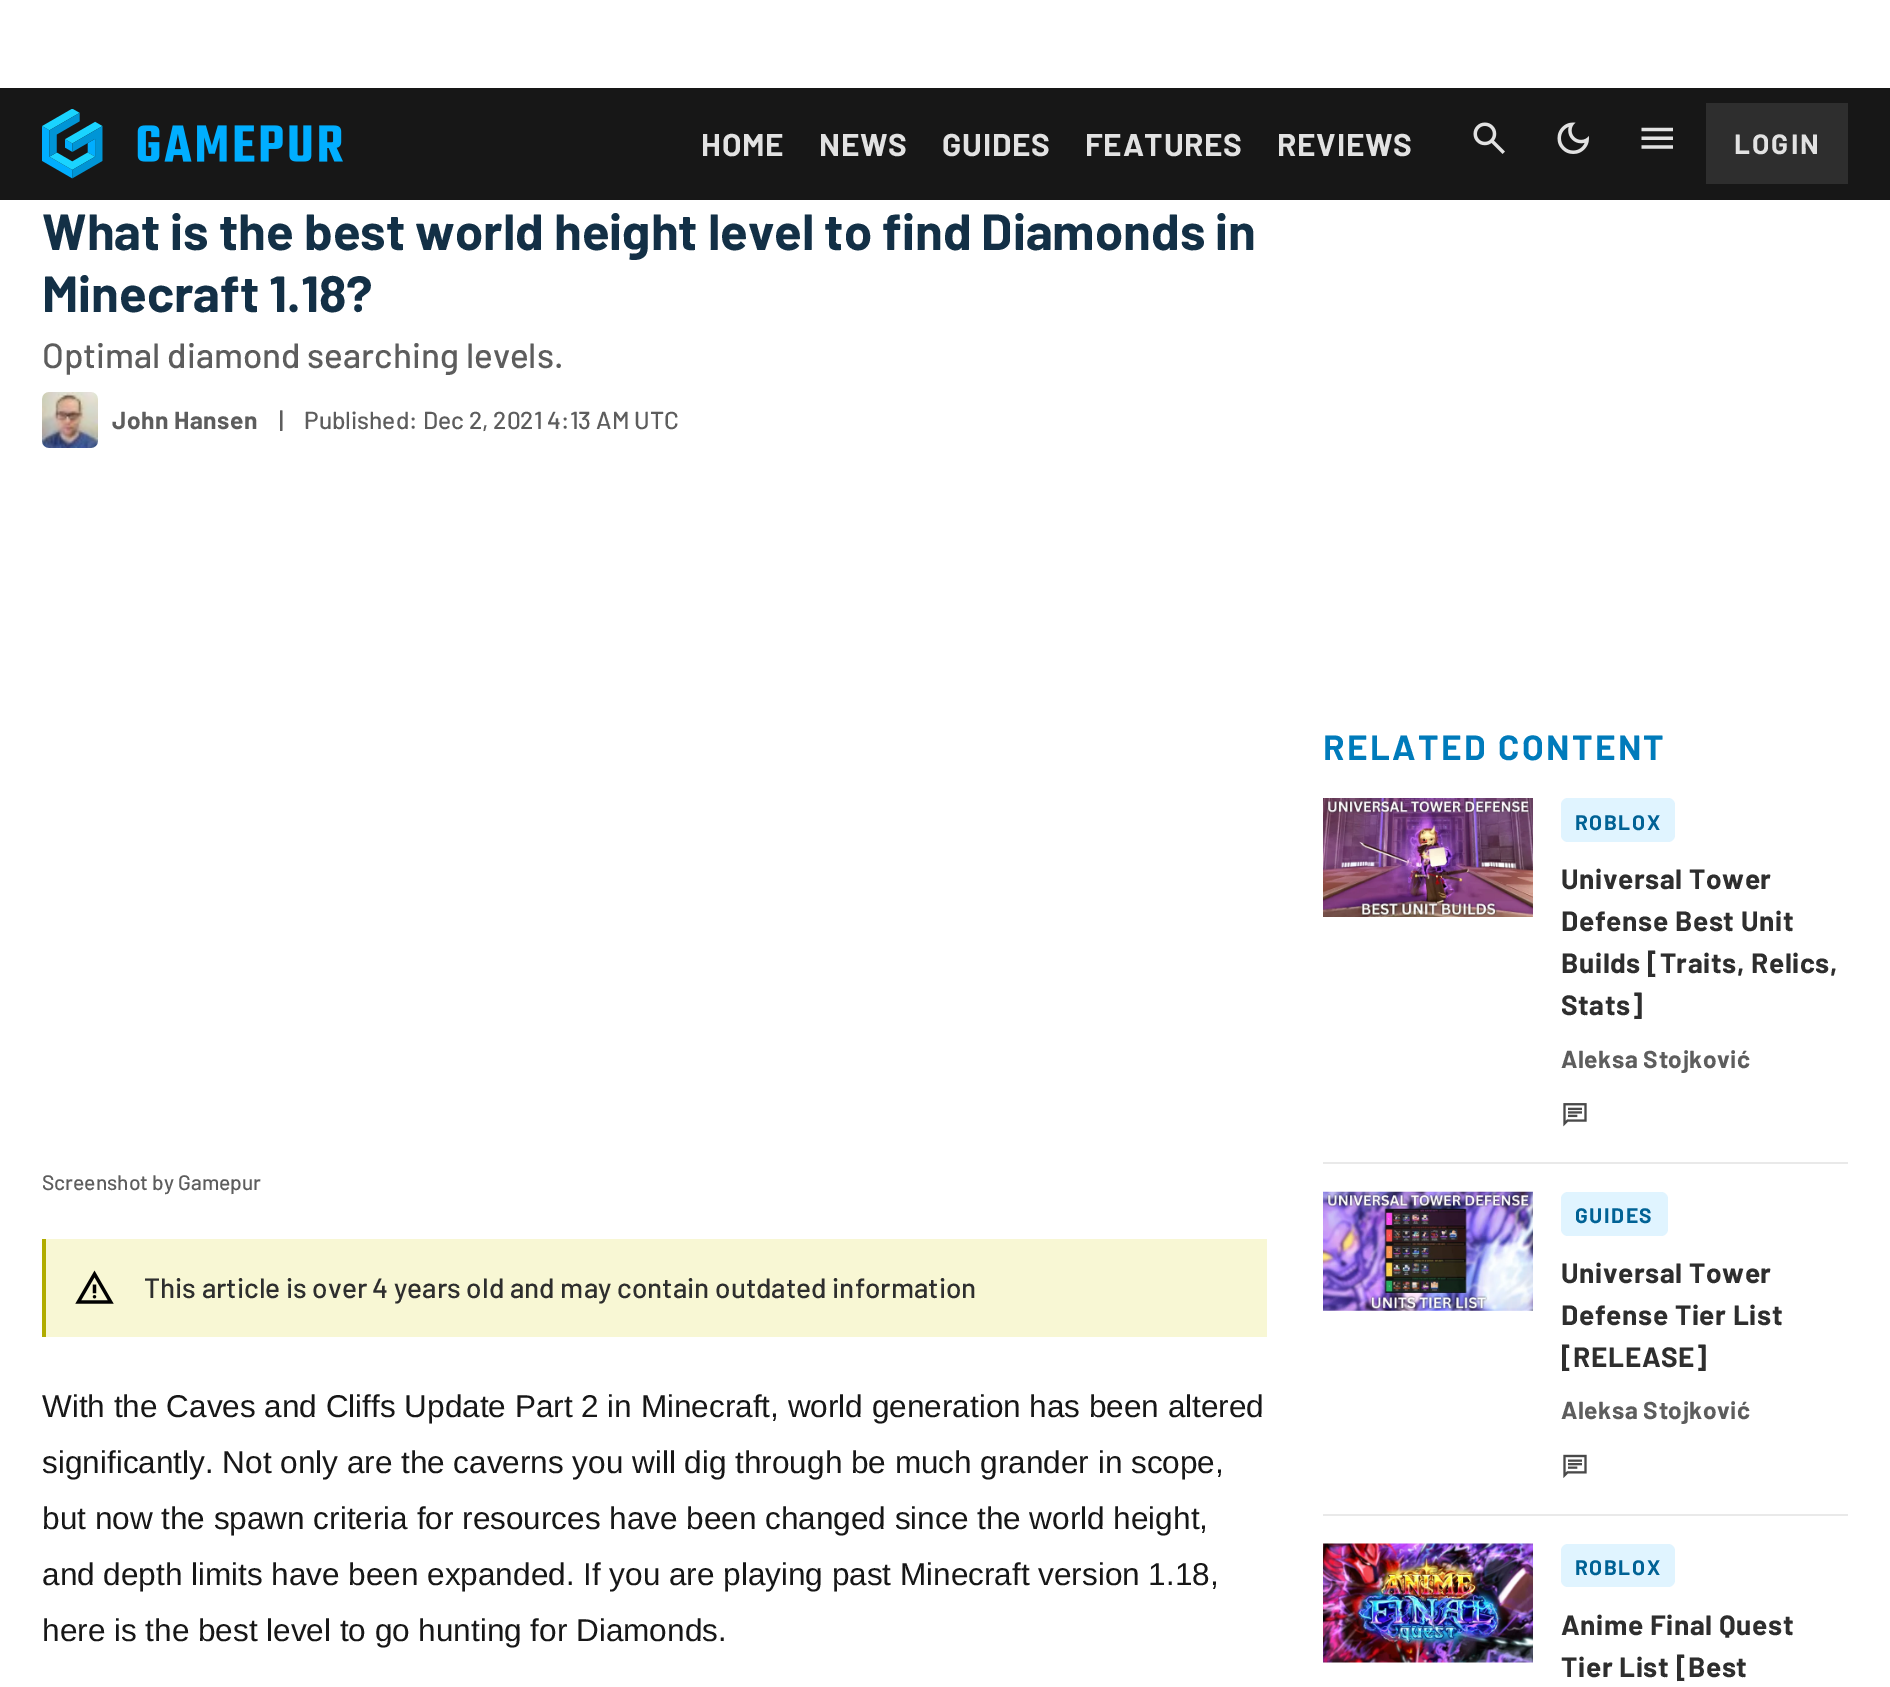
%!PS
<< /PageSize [1890 1687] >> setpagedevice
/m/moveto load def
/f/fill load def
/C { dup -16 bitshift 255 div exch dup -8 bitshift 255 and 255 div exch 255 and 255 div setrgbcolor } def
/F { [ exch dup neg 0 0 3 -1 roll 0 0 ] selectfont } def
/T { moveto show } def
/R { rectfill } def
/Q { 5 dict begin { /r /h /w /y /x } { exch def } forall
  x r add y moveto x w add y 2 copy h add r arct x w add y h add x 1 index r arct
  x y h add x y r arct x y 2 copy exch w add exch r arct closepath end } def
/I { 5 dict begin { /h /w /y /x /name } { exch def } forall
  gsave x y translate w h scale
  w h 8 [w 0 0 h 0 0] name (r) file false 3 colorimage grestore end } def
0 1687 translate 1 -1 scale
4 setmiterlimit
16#FFFFFF C
0 0 1890 1687 R
16#171717 C
0 88 1890 112 R
(1.rgb) 42 109 301 70 I
/Barlow-Bold 31.5 F
16#E2E2E2 C
701 156 m .75 0 (HOME) ashow
819 156 m .75 0 (NEWS) ashow
942 156 m .75 0 (GUIDES) ashow
1085 156 m .75 0 (FEATURES) ashow
1277 156 m .75 0 (REVIEWS) ashow
(2.rgb) 1473 122 32 32 I
(3.rgb) 1557 122 32 32 I
(4.rgb) 1641 127 32 22 I
16#2E2E2E C
1706 103 142 81 R
/Barlow-Bold 28 F
16#E2E2E2 C
1734 154 m 2 0 (LOGIN) ashow
/Barlow-Bold 50.75 F
16#133046 C
(What is the best world height level to find Diamonds in) 42 250 T
(Minecraft 1.18?) 42 312 T
/Barlow-Medium 35 F
16#5D5D5D C
(Optimal diamond searching levels.) 42 368 T
(5.rgb) 42 392 56 56 I
/Barlow-Bold 24.5 F
112 429 m .5 0 (John Hansen) ashow
/Barlow-Medium 24.5 F
(|) 279 429 T
(Published: Dec 2, 2021 4:13 AM UTC) 304 429 T
/Barlow-Medium 21 F
(Screenshot by Gamepur) 42 1190 T
16#F8F7D4 C
46 1239 1221 98 R
16#B0AC00 C
42 1239 4 98 R
(6.rgb) 75 1270 39 34 I
/Barlow-Medium 28 F
16#2E2E2E C
(This article is over 4 years old and may contain outdated information) 144 1298 T
/LiberationSans-Regular 31.5 F
16#171717 C
(With the Caves and Cliffs Update Part 2 in Minecraft, world generation has been altered) 42 1417 T
(significantly. Not only are the caverns you will dig through be much grander in scope,) 42 1473 T
(but now the spawn criteria for resources have been changed since the world height,) 42 1529 T
(and depth limits have been expanded. If you are playing past Minecraft version 1.18,) 42 1585 T
(here is the best level to go hunting for Diamonds.) 42 1641 T
/Barlow-Bold 35 F
16#007BBB C
1323 760 m 2.5 0 (RELATED CONTENT) ashow
(7.rgb) 1323 798 210 119 I
16#E0F4FF C
1561 798 114 44 7 Q f
/Barlow-Bold 21 F
16#006295 C
1575 830 m 1.5 0 (ROBLOX) ashow
/Barlow-Bold 28 F
16#2E2E2E C
1561 889 m .6 0 (Universal Tower) ashow
1561 931 m .6 0 (Defense Best Unit) ashow
1561 973 m .6 0 (Builds [Traits, Relics,) ashow
1561 1015 m .6 0 (Stats]) ashow
/Barlow-Bold 24.5 F
16#5D5D5D C
1561 1068 m .5 0 (Aleksa Stojković) ashow
(8.rgb) 1563 1103 24 24 I
16#E9E9E9 C
1323 1162 525 2 R
(9.rgb) 1323 1191 210 120 I
16#E0F4FF C
1561 1192 107 44 7 Q f
/Barlow-Bold 21 F
16#006295 C
1575 1223 m 1.5 0 (GUIDES) ashow
/Barlow-Bold 28 F
16#2E2E2E C
1561 1283 m .6 0 (Universal Tower) ashow
1561 1325 m .6 0 (Defense Tier List) ashow
1561 1367 m .6 0 ([RELEASE]) ashow
/Barlow-Bold 24.5 F
16#5D5D5D C
1561 1419 m .5 0 (Aleksa Stojković) ashow
(10.rgb) 1563 1454 24 24 I
16#E9E9E9 C
1323 1514 525 2 R
(11.rgb) 1323 1543 210 120 I
16#E0F4FF C
1561 1544 114 43 7 Q f
/Barlow-Bold 21 F
16#006295 C
1575 1575 m 1.5 0 (ROBLOX) ashow
/Barlow-Bold 28 F
16#2E2E2E C
1561 1635 m .6 0 (Anime Final Quest) ashow
1561 1677 m .6 0 (Tier List [Best) ashow
showpage
